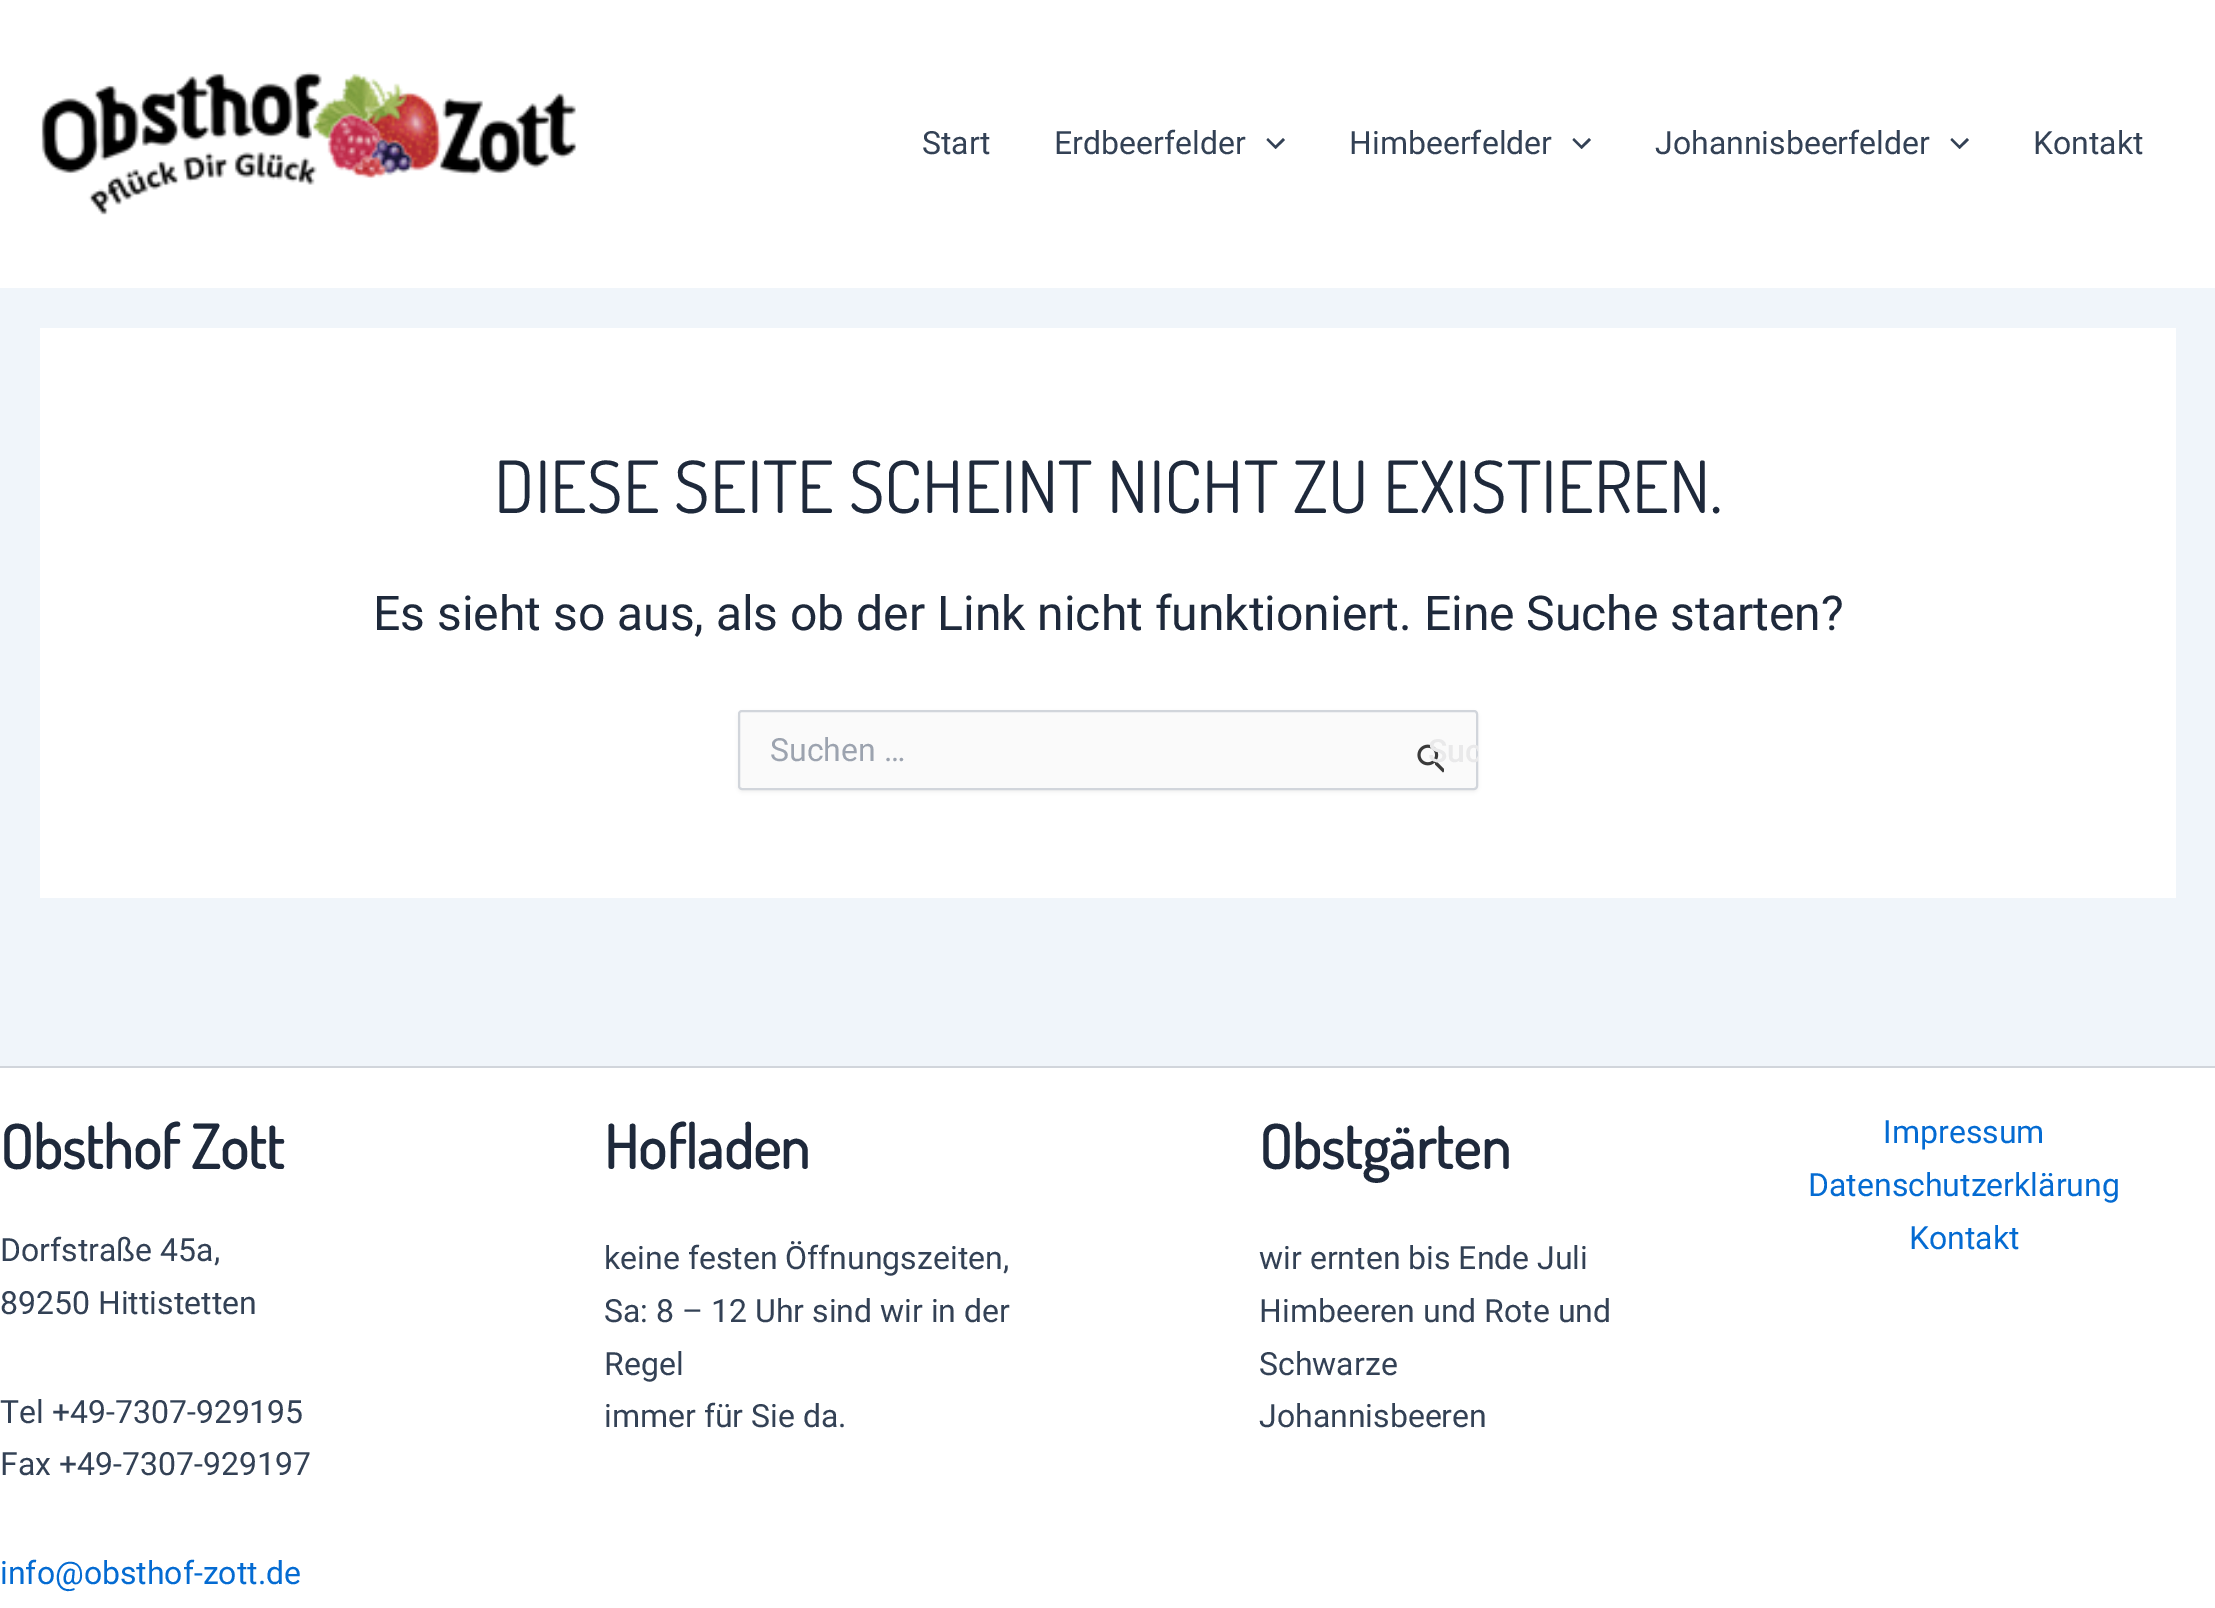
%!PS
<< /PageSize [2215 1608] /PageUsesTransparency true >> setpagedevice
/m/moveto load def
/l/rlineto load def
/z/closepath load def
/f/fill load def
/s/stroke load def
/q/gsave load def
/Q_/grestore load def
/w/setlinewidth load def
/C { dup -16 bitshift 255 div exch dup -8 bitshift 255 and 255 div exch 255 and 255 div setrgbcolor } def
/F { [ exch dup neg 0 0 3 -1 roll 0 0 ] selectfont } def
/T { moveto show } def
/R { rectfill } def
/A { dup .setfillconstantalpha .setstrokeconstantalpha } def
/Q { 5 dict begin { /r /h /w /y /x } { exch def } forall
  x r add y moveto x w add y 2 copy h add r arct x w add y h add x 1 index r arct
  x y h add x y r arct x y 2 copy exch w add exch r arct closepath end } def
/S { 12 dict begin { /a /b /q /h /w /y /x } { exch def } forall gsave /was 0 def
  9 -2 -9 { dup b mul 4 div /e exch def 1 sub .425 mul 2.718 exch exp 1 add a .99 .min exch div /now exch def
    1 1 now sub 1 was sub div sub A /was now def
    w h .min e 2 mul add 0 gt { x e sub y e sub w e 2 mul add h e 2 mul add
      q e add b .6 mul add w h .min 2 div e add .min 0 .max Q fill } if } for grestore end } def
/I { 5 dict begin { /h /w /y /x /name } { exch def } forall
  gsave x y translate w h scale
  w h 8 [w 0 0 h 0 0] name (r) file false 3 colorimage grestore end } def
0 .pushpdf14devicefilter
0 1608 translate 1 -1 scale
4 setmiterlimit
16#F0F5FA C
0 0 2215 1608 R
16#FFFFFF C
0 0 2215 288 R
(1.rgb) 41 72 536 143 I
/Roboto-Regular 32 F
16#334155 C
(Start) 922 154 T
(Erdbeerfelder) 1054 154 T
1266.5 140 m 9 9 l 9.5 -9 l -2 -2 l -7.5 7.5 l -7.5 -7.5 l z f
(Himbeerfelder) 1349 154 T
1572.5 140 m 9 9 l 9.5 -9 l -2 -2 l -7.5 7.5 l -7.5 -7.5 l z f
(Johannisbeerfelder) 1655 154 T
1950.5 140 m 9 9 l 9.5 -9 l -2 -2 l -7.5 7.5 l -7.5 -7.5 l z f
(Kontakt) 2033 154 T
16#FFFFFF C
40 328 2136 570 R
/Dosis-Regular 72 F
16#1E293B C
494 513 m .2 0 (DIESE SEITE SCHEINT NICHT ZU EXISTIEREN.) ashow
/Roboto-Regular 48 F
(Es sieht so aus, als ob der Link nicht funktioniert. Eine Suche starten?) 373 630 T
16#000000 C
738 712 740 80 4 2 .05 S
16#FAFAFA C
739 711 738 78 3 Q q f Q_
16#D1D5DB C
2 w
s
/Roboto-Regular 32 F
16#9CA3AF C
(Suchen …) 770 761 T
(2.rgb) 1417 744 27 29 I
q
1388 710 90 84 4 Q clip newpath
/Roboto-Medium 32 F
16#E9E9EA C
(Suc) 1428 762 T
Q_
16#FFFFFF C
0 1068 2215 540 R
16#D1D5DB C
0 1066 2215 2 R
/Dosis-Bold 60 F
16#1E293B C
(Obsthof Zott) 0 1169 T
/Roboto-Regular 32 F
16#334155 C
(Dorfstraße 45a,) 0 1261 T
(89250 Hittistetten) 0 1314 T
(Tel +49-7307-929195) 0 1423 T
(Fax +49-7307-929197) 0 1475 T
16#046BD2 C
(info@obsthof-zott.de) 0 1584 T
/Dosis-Bold 60 F
16#1E293B C
(Hofladen) 604 1169 T
/Roboto-Regular 32 F
16#334155 C
(keine festen Öffnungszeiten,) 604 1269 T
(Sa: 8 – 12 Uhr sind wir in der) 604 1322 T
(Regel) 604 1375 T
(immer für Sie da.) 604 1427 T
/Dosis-Bold 60 F
16#1E293B C
(Obstgärten) 1259 1169 T
/Roboto-Regular 32 F
16#334155 C
(wir ernten bis Ende Juli) 1259 1269 T
(Himbeeren und Rote und) 1259 1322 T
(Schwarze) 1259 1375 T
(Johannisbeeren) 1259 1427 T
16#046BD2 C
(Impressum) 1883 1143 T
(Datenschutzerklärung) 1808 1196 T
(Kontakt) 1909 1249 T
.poppdf14devicefilter showpage
